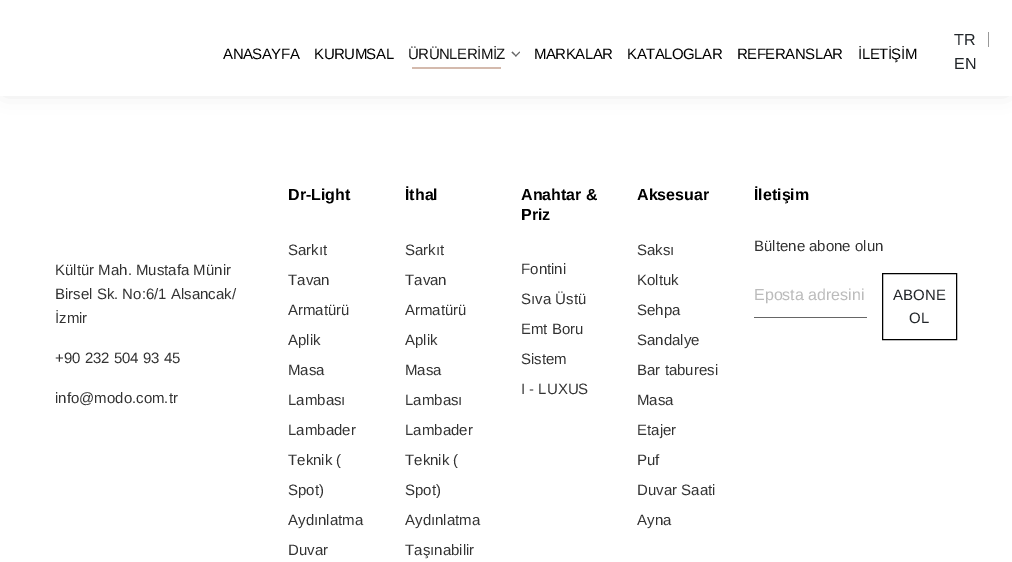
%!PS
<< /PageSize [1012 562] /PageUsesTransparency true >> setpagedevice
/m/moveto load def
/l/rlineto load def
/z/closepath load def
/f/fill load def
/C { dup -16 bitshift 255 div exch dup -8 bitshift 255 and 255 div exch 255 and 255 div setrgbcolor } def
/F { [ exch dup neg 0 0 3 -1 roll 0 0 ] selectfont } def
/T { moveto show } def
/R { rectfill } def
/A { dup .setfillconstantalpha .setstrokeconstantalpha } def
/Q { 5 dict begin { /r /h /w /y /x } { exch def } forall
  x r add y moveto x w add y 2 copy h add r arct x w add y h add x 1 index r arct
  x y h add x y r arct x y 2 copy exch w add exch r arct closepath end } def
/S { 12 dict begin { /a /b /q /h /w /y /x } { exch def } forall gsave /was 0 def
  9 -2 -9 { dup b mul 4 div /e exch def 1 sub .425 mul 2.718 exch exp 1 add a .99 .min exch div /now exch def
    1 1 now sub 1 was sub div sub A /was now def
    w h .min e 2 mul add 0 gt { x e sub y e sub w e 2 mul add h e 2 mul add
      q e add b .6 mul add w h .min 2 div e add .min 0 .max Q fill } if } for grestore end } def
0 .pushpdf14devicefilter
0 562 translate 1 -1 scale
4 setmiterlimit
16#FFFFFF C
0 0 1012 562 R
16#000000 C
5 5 1002 86 0 10.5 .13 S
16#FFFFFF C
0 0 1012 96 R
/LiberationSans-Regular 15 F
16#000000 C
223 59 m -.5 0 (ANASAYFA) ashow
314 59 m -.5 0 (KURUMSAL) ashow
16#111111 C
408 59 m -.5 0 (ÜRÜNLERİMİZ) ashow
16#666666 C
519.5 51.5 m .5 1 l -4 4 l -1 -.5 l z f
512.5 51.5 m 4 4.5 l -.5 .5 l -4.5 -4 l z f
16#D4BAAD C
412 67 89 2 R
16#000000 C
534 59 m -.5 0 (MARKALAR) ashow
627 59 m -.5 0 (KATALOGLAR) ashow
737 59 m -.5 0 (REFERANSLAR) ashow
858 59 m -.5 0 (İLETİŞİM) ashow
/LiberationSans-Regular 16 F
16#212529 C
(TR) 954 45 T
16#999999 C
988 32 1 15 R
16#212529 C
(EN) 954 69 T
/LiberationSans-Regular 15 F
16#333333 C
(Kültür Mah. Mustafa Münir) 55 275 T
(Birsel Sk. No:6/1 Alsancak/) 55 299 T
(İzmir) 55 323 T
(+90 232 504 93 45) 55 363 T
(info@modo.com.tr) 55 403 T
/LiberationSans-Bold 16 F
16#000000 C
(Dr-Light) 288 200 T
/LiberationSans-Regular 15 F
16#333333 C
(Sarkıt) 288 255 T
(Tavan) 288 285 T
(Armatürü) 288 315 T
(Aplik) 288 345 T
(Masa) 288 375 T
(Lambası) 288 405 T
(Lambader) 288 435 T
(Teknik \() 288 465 T
(Spot\)) 288 495 T
(Aydınlatma) 288 525 T
(Duvar) 288 555 T
/LiberationSans-Bold 16 F
16#000000 C
(İthal) 405 200 T
/LiberationSans-Regular 15 F
16#333333 C
(Sarkıt) 405 255 T
(Tavan) 405 285 T
(Armatürü) 405 315 T
(Aplik) 405 345 T
(Masa) 405 375 T
(Lambası) 405 405 T
(Lambader) 405 435 T
(Teknik \() 405 465 T
(Spot\)) 405 495 T
(Aydınlatma) 405 525 T
(Taşınabilir) 405 555 T
/LiberationSans-Bold 16 F
16#000000 C
(Anahtar &) 521 200 T
(Priz) 521 220 T
/LiberationSans-Regular 15 F
16#333333 C
(Fontini) 521 274 T
(Sıva Üstü) 521 304 T
(Emt Boru) 521 334 T
(Sistem) 521 364 T
(I - LUXUS) 521 394 T
/LiberationSans-Bold 16 F
16#000000 C
(Aksesuar) 637 200 T
/LiberationSans-Regular 15 F
16#333333 C
(Saksı) 637 255 T
(Koltuk) 637 285 T
(Sehpa) 637 315 T
(Sandalye) 637 345 T
(Bar taburesi) 637 375 T
(Masa) 637 405 T
(Etajer) 637 435 T
(Puf) 637 465 T
(Duvar Saati) 637 495 T
(Ayna) 637 525 T
/LiberationSans-Bold 16 F
16#000000 C
(İletişim) 754 200 T
/LiberationSans-Regular 15 F
16#333333 C
(Bültene abone olun) 754 251 T
16#666666 C
754 317 113 1 R
/LiberationSans-Regular 16 F
16#BBBBBB C
(Eposta adresini) 754 300 T
16#000000 C
882.5 273.5 74 66 rectstroke
/LiberationSans-Regular 15 F
16#212529 C
(ABONE) 893 300 T
(OL) 909 323 T
.poppdf14devicefilter showpage
